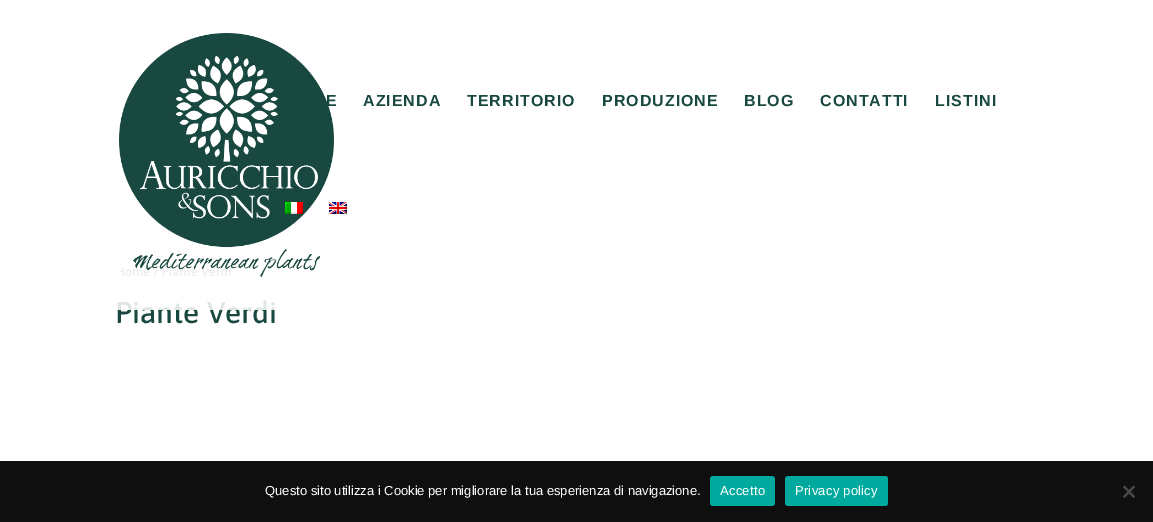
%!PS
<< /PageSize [1153 522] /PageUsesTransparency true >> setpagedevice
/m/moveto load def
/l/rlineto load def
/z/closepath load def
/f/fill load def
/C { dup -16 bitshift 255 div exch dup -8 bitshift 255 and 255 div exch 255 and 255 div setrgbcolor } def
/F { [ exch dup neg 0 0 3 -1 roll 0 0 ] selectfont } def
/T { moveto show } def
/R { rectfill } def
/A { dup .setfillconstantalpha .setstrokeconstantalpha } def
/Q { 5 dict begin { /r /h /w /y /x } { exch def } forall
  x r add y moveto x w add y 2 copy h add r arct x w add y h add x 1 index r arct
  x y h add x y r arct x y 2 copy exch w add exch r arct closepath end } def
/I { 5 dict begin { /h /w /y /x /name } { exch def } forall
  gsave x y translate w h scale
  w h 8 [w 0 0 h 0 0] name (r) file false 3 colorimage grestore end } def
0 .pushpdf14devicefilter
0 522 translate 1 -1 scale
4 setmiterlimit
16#FFFFFF C
0 0 1153 522 R
/Asap-Medium 30 F
16#18483F C
(Piante Verdi) 115 323 T
0.86 A
16#FFFFFF C
117 300 159 10 R
1 A
(1.rgb) 119 33 215 244 I
/LiberationSans-Bold 16 F
16#18483F C
326 106 m 1 0 (E) ashow
363 106 m 1 0 (AZIENDA) ashow
467 106 m 1 0 (TERRITORIO) ashow
602 106 m 1 0 (PRODUZIONE) ashow
744 106 m 1 0 (BLOG) ashow
820 106 m 1 0 (CONTATTI) ashow
935 106 m 1 0 (LISTINI) ashow
(2.rgb) 285 202 18 12 I
(3.rgb) 329 202 18 12 I
16#0F0F0F C
0 461 1153 61 R
/LiberationSans-Regular 13 F
16#FFFFFF C
(Questo sito utilizza i Cookie per migliorare la tua esperienza di navigazione.) 265 495 T
16#00A99D C
710 476 65 30 3 Q f
16#FFFFFF C
720 495 m .25 0 (Accetto) ashow
16#00A99D C
785 476 103 30 3 Q f
16#FFFFFF C
795 495 m .25 0 (Privacy policy) ashow
16#484848 C
1133.5 485.5 m 1.5 1.5 l -10.5 11 l -1.5 -1.5 l z f
1123 487 m 1.5 -1.5 l 10.5 11 l -1.5 1.5 l z f
.poppdf14devicefilter showpage
